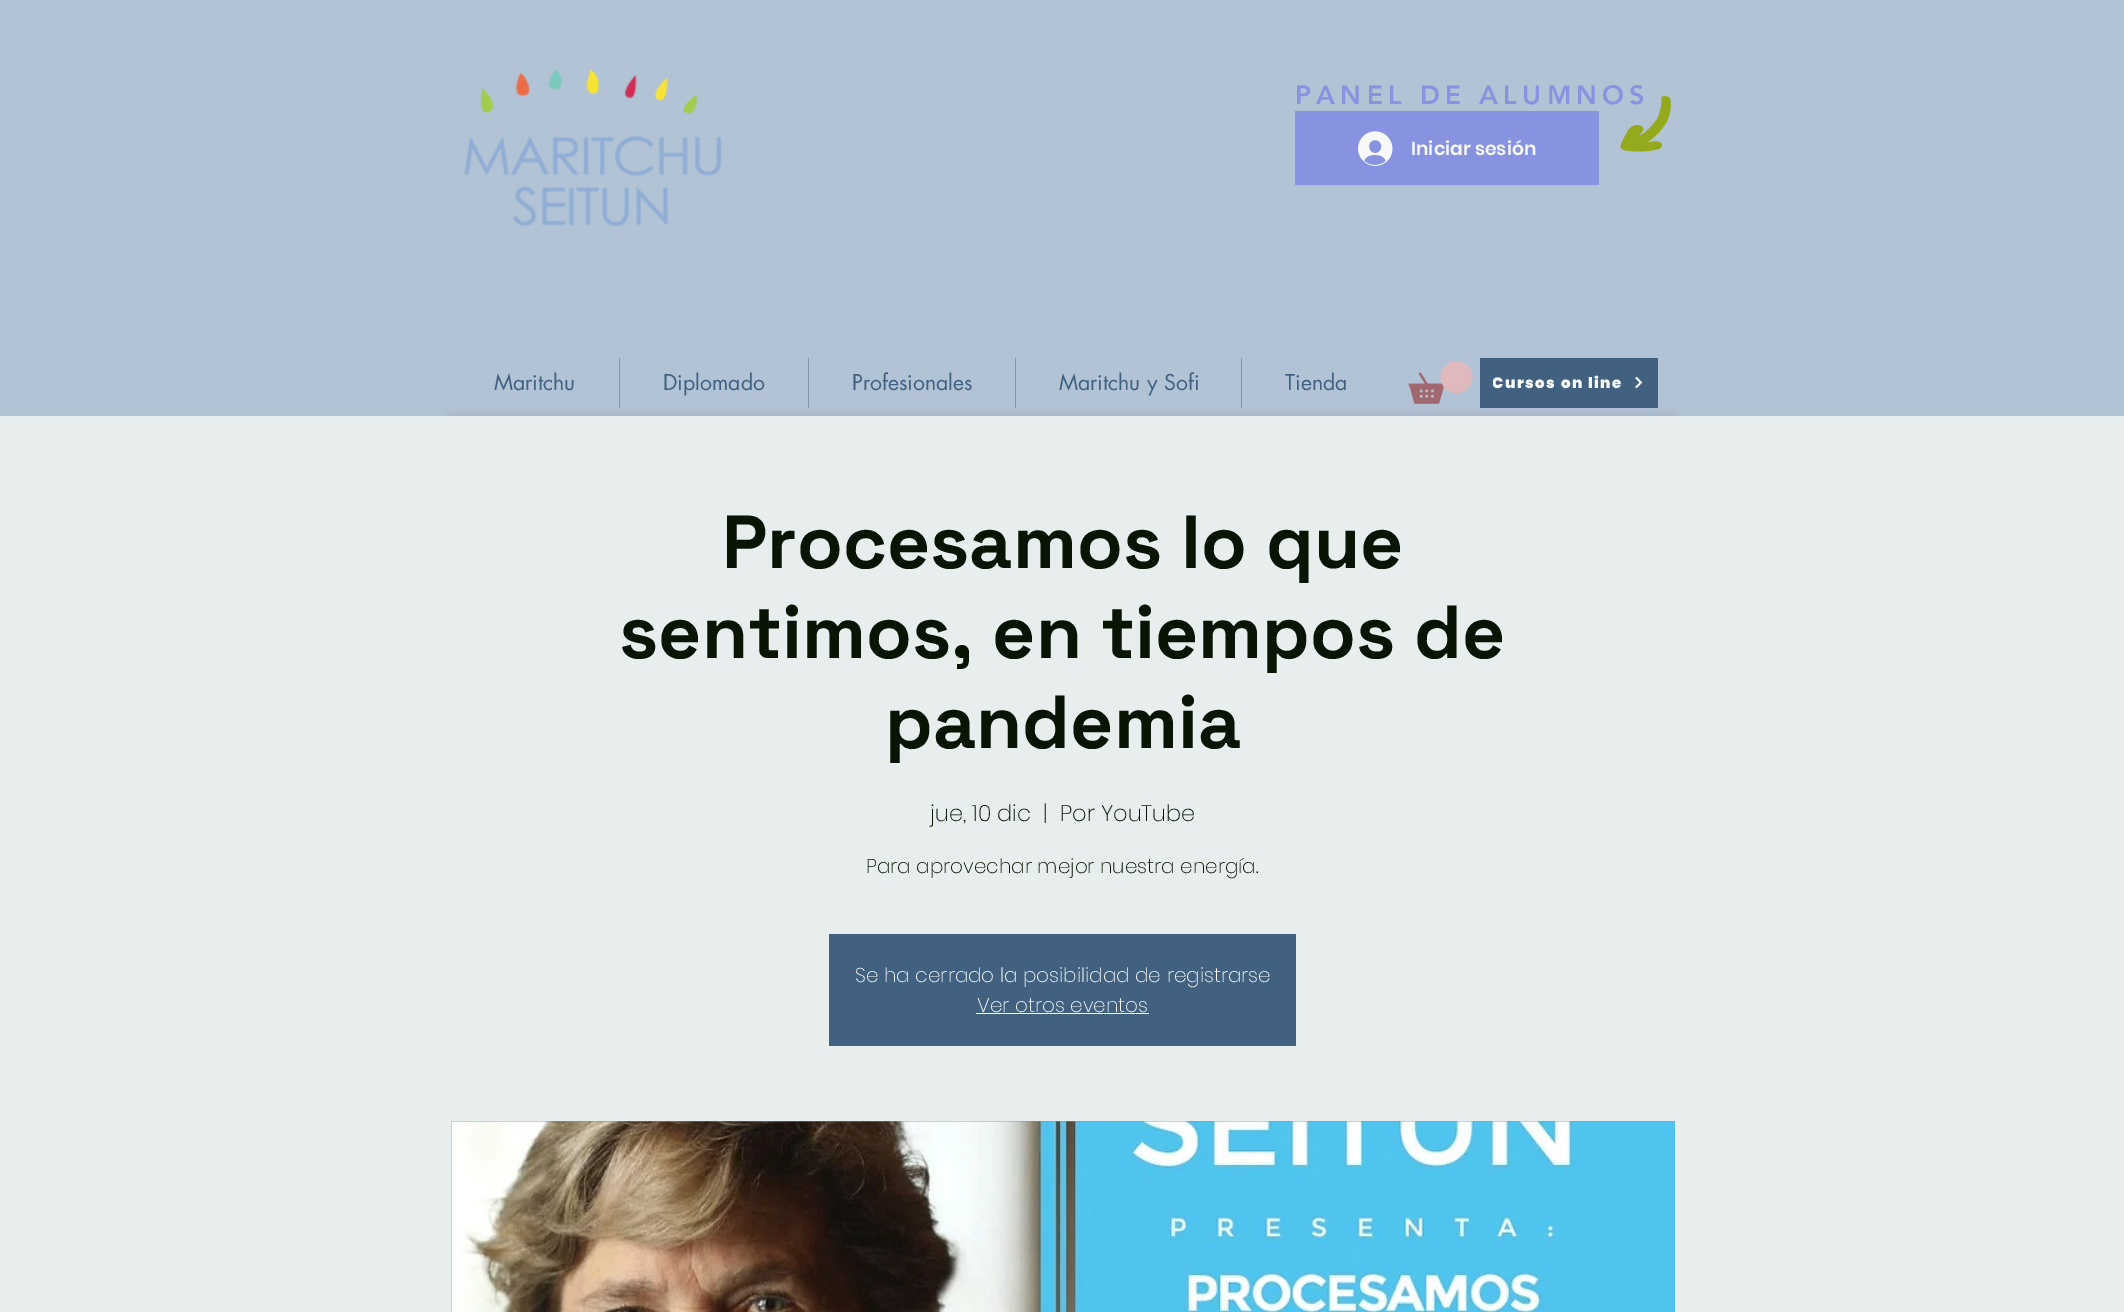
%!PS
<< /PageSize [2124 1312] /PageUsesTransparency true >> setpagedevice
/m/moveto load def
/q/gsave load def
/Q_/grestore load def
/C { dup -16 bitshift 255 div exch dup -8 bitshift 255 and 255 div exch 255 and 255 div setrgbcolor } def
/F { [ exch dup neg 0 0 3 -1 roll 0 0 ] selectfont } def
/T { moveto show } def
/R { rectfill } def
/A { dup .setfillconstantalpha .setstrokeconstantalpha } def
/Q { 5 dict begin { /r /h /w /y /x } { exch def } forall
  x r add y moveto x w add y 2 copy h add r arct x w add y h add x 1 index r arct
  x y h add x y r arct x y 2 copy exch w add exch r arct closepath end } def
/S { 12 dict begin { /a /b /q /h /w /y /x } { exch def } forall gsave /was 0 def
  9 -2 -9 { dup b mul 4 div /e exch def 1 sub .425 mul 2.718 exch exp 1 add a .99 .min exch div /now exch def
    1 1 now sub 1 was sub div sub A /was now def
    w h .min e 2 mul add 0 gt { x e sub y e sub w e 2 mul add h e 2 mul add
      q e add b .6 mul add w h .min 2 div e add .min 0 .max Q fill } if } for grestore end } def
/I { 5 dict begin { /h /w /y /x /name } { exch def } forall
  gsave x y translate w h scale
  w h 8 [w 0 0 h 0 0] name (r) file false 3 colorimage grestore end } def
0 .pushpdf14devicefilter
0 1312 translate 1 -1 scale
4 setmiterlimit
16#B2C3D5 C
0 0 2124 1312 R
(1.rgb) 464 68 258 159 I
/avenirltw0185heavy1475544-Black 26.25 F
16#8793E0 C
1295 104 m 5.25 0 (PANEL DE ALUMNOS) ashow
(2.rgb) 1620 96 51 56 I
1295 111 304 74 R
(3.rgb) 1358 131 35 35 I
/Poppins-SemiBold 18.75 F
16#F6F9F5 C
(Iniciar sesión) 1411 155 T
/futura-Regular 21.25 F
16#426181 C
(Maritchu) 494 390 T
16#8196AB C
619 358 1 50 R
16#426181 C
(Diplomado) 663 390 T
16#8196AB C
808 358 1 50 R
16#426181 C
(Profesionales) 852 390 T
16#8196AB C
1015 358 1 50 R
16#426181 C
(Maritchu y Sofi) 1059 390 T
16#8196AB C
1241 358 1 50 R
16#426181 C
(Tienda) 1285 390 T
(4.rgb) 1408 361 65 43 I
1480 358 178 50 R
q
1493 371 130 23 rectclip
/Poppins-Black 15 F
16#F6F9F5 C
1492 388 m 1.5 0 (Cursos on line) ashow
Q_
(5.rgb) 1635 376 8 13 I
16#1E1E1E C
451 418 1223 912 0 6 .2 S
16#E7EEED C
0 416 2124 896 R
/SpaceGrotesk-Bold 75 F
16#091405 C
(Procesamos lo que) 722 568 T
(sentimos, en tiempos de) 619 658 T
(pandemia) 885 748 T
/Poppins-ExtraLight 22.5 F
(jue, 10 dic) 930 821 T
(|) 1043 821 T
(Por YouTube) 1060 821 T
/Poppins-ExtraLight 20 F
(Para aprovechar mejor nuestra energía.) 866 873 T
16#426181 C
829 934 467 112 R
16#F6F9F5 C
(Se ha cerrado la posibilidad de registrarse) 855 982 T
(Ver otros eventos) 977 1012 T
976 1013 173 1 R
16#8196AB C
451 1121 1224 191 R
(6.rgb) 451 1121 1224 191 I
.poppdf14devicefilter showpage
